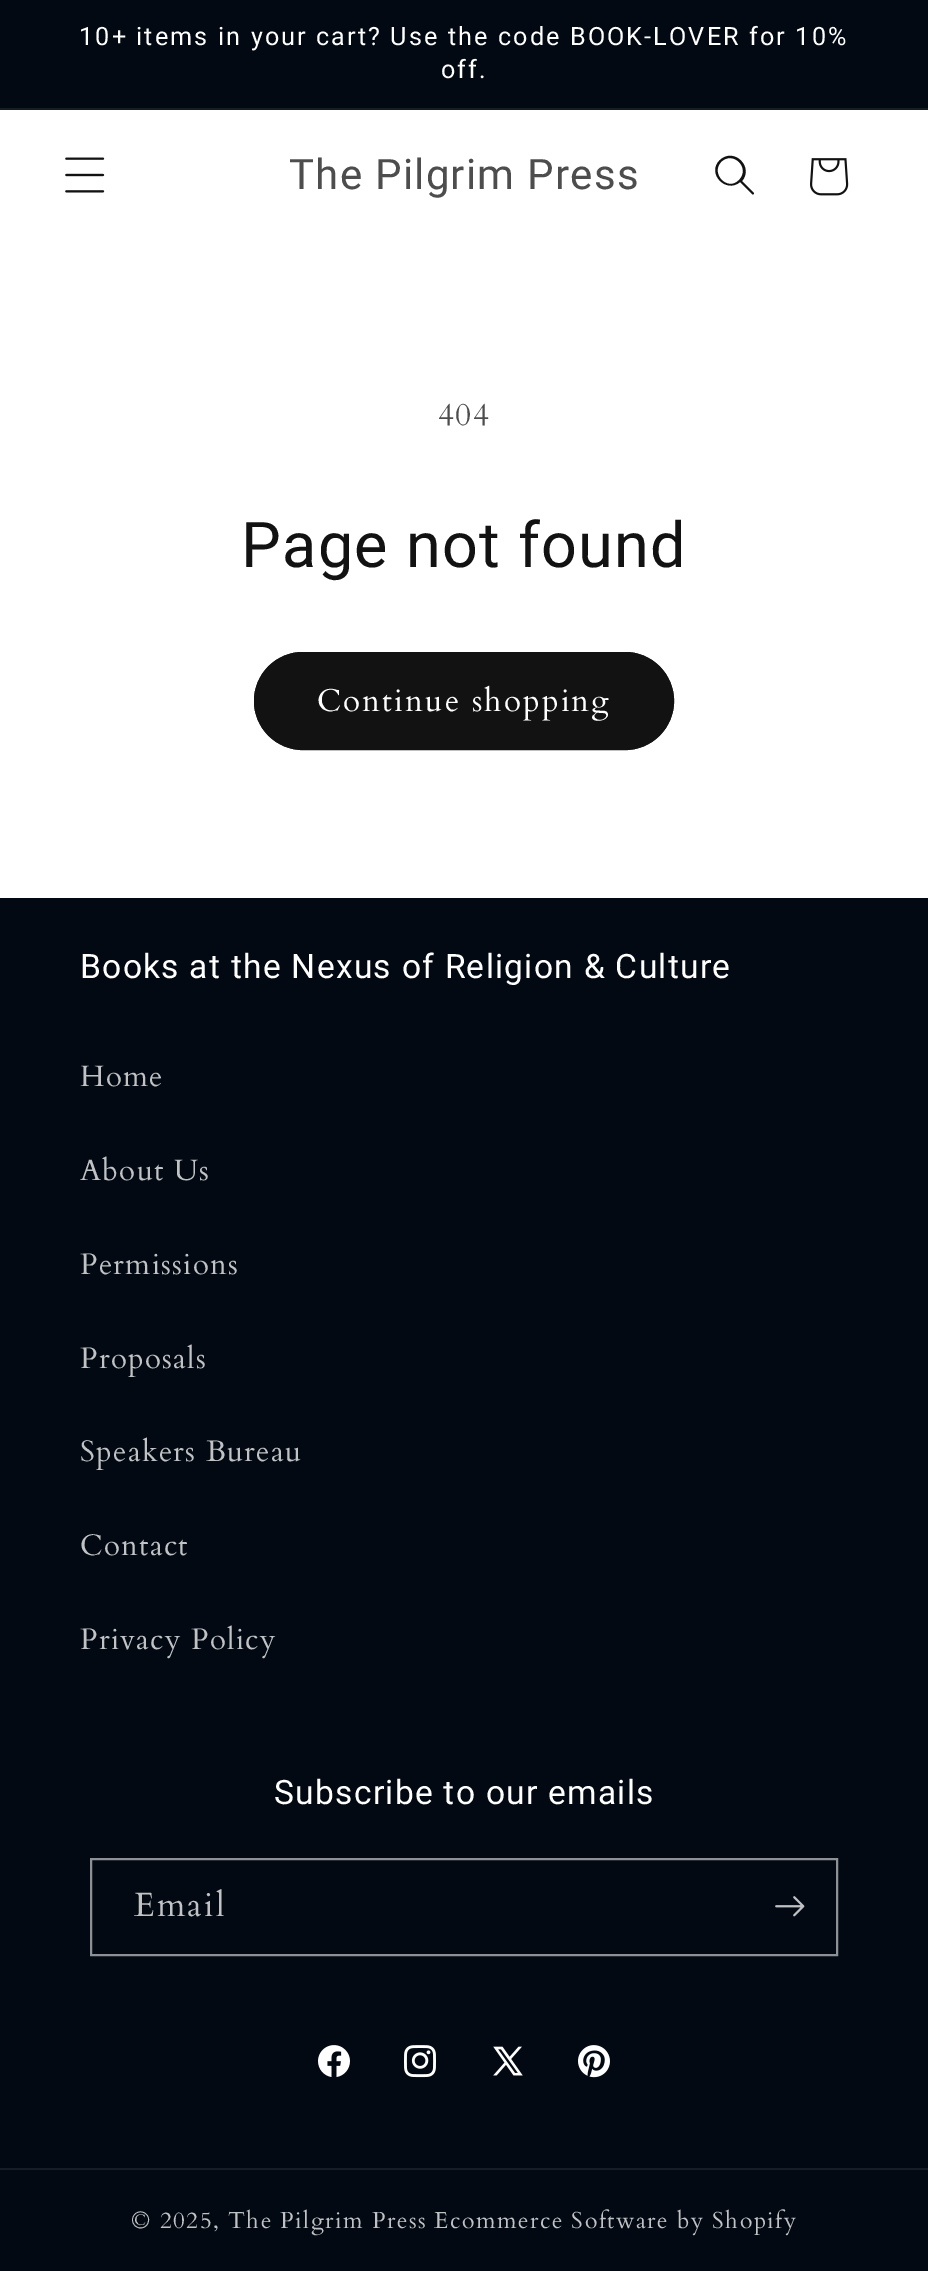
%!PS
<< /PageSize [928 2271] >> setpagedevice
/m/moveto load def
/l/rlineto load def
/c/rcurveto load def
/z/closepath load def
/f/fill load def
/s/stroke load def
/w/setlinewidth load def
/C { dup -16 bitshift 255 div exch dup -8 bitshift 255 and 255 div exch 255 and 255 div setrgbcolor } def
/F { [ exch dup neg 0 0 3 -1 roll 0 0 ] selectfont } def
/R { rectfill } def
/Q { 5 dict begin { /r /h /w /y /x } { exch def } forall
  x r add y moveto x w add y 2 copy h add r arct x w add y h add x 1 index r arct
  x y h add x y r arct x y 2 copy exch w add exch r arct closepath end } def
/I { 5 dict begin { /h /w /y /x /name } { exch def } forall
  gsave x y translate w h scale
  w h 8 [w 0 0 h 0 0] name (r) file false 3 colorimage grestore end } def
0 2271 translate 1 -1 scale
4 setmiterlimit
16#FFFFFF C
0 0 928 2271 R
16#020912 C
0 0 928 108 R
16#161D25 C
0 108 928 2 R
/Roboto-Regular 25.2 F
16#FFFFFF C
79 45 m 2.1 0 (10+ items in your cart? Use the code BOOK-LOVER for 10%) ashow
441 78 m 2.1 0 (off.) ashow
(1.rgb) 65 157 40 36 I
/Roboto-Regular 42 F
16#4D4D4D C
289 189 m 1.25 0 (The Pilgrim Press) ashow
16#121212 C
739 180 m -11 12 -29 -6 -18 -18 c 12 -12 30 6 18 18 c 740 182 m -14 12 -34 -9 -20 -22 c 14 -13 34 7 22 21 c 12 12 l 0 1 -1 2 -2 1 c z eofill
(2.rgb) 810 158 39 38 I
/Cardo-Regular 31.5 F
16#4D4D4D C
438 425 m 1.25 0 (404) ashow
/Roboto-Regular 63 F
16#121212 C
241 567 m 1.25 0 (Page not found) ashow
254 652 420 98 49 Q f
2 w
255 653 418 96 48 Q s
/Cardo-Regular 31.5 F
16#FFFFFF C
317 711 m 2.1 0 (Continue shopping) ashow
16#020912 C
0 898 928 1373 R
/Roboto-Regular 33.6 F
16#FFFFFF C
80 978 m 1.25 0 (Books at the Nexus of Religion & Culture) ashow
/Cardo-Regular 29.5 F
16#C0C2C4 C
80 1086 m 1.25 0 (Home) ashow
80 1180 m 1.25 0 (About Us) ashow
80 1274 m 1.25 0 (Permissions) ashow
80 1368 m 1.25 0 (Proposals) ashow
80 1461 m 1.25 0 (Speakers Bureau) ashow
80 1555 m 1.25 0 (Contact) ashow
80 1649 m 1.25 0 (Privacy Policy) ashow
/Roboto-Regular 33.6 F
16#FFFFFF C
274 1804 m 1.25 0 (Subscribe to our emails) ashow
16#8D9094 C
91 1859 746 96 rectstroke
/Cardo-Regular 33.6 F
16#C0C2C4 C
134 1916 m 2.1 0 (Email) ashow
(3.rgb) 775 1896 30 21 I
(4.rgb) 318 2045 32 32 I
(5.rgb) 404 2045 32 33 I
(6.rgb) 493 2046 30 30 I
(7.rgb) 578 2045 32 33 I
16#161D25 C
0 2168 928 2 R
/Cardo-Regular 23.1 F
16#C0C2C4 C
131 2228 m 1.5 0 (© 2025, The Pilgrim Press) ashow
434 2228 m 1.5 0 (Ecommerce Software by Shopify) ashow
showpage
